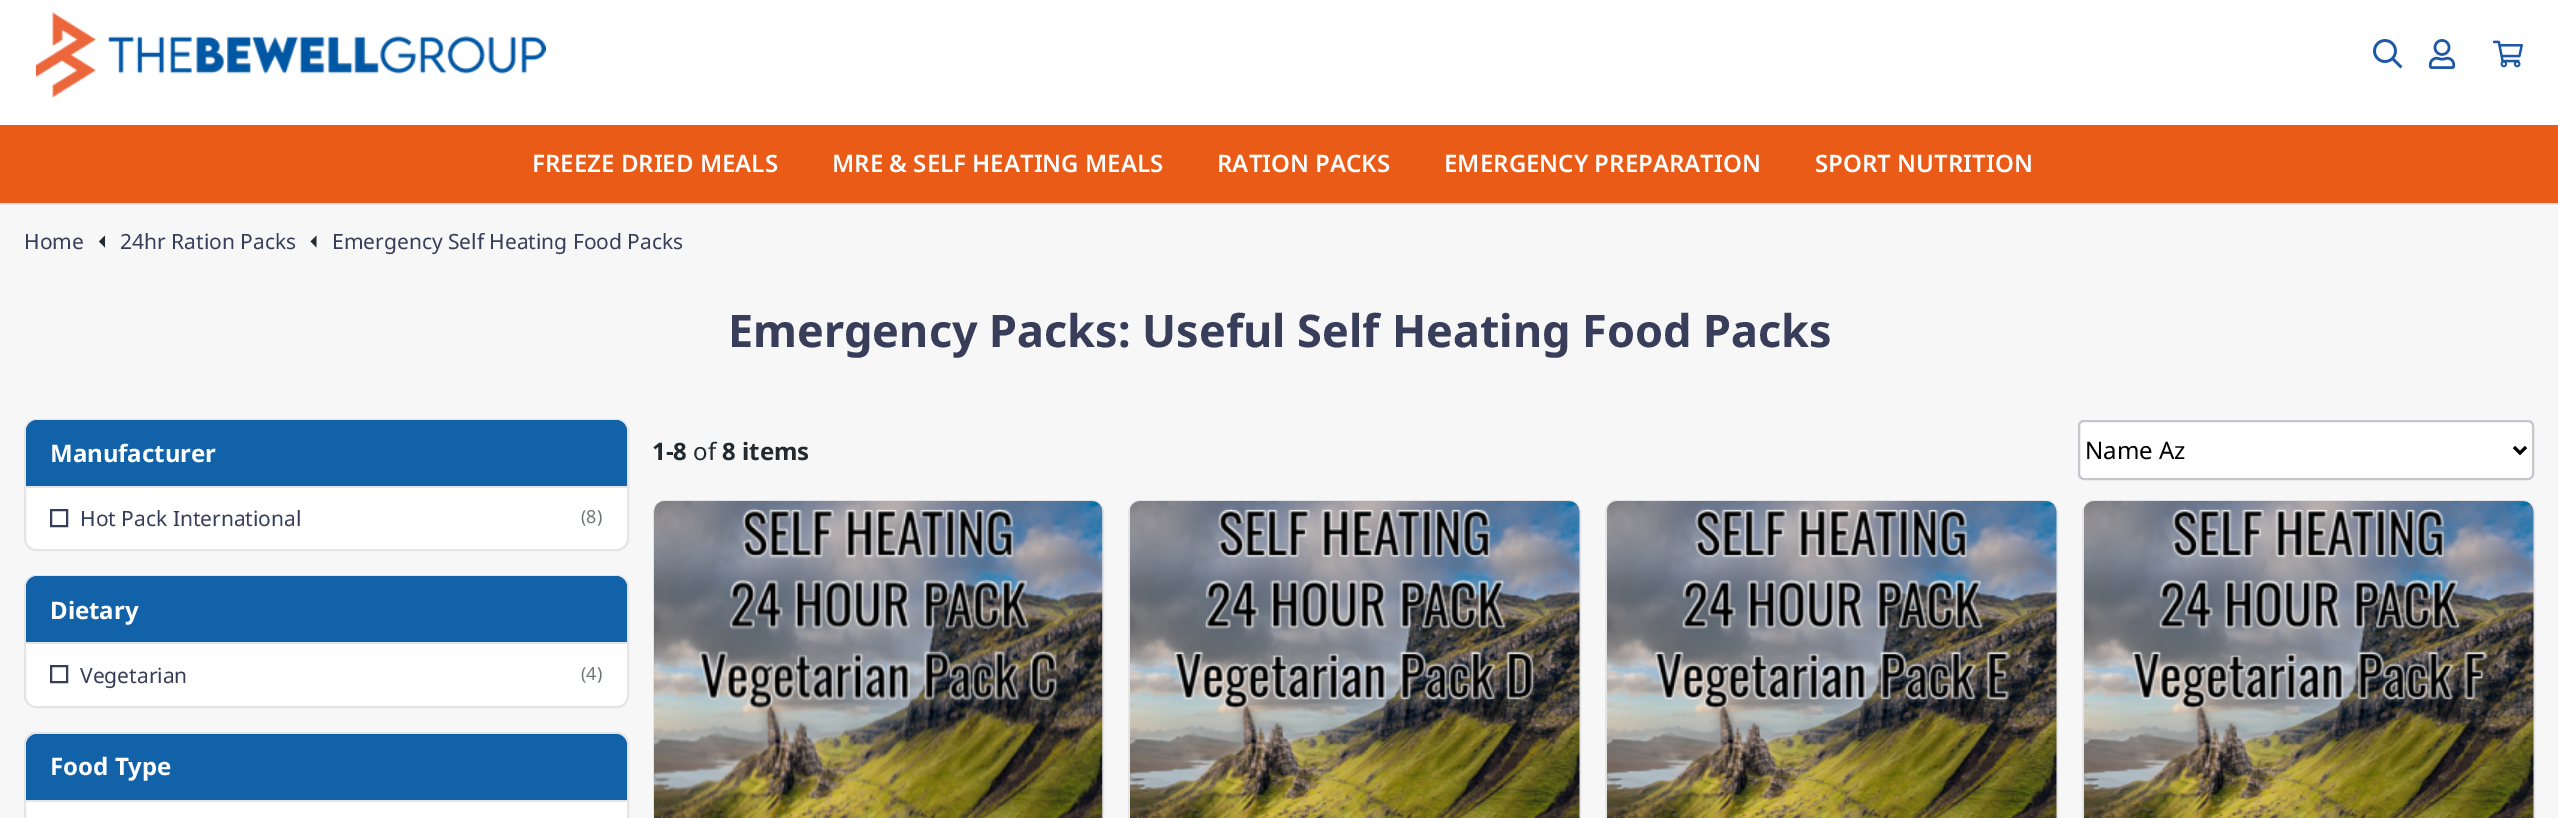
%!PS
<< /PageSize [2558 818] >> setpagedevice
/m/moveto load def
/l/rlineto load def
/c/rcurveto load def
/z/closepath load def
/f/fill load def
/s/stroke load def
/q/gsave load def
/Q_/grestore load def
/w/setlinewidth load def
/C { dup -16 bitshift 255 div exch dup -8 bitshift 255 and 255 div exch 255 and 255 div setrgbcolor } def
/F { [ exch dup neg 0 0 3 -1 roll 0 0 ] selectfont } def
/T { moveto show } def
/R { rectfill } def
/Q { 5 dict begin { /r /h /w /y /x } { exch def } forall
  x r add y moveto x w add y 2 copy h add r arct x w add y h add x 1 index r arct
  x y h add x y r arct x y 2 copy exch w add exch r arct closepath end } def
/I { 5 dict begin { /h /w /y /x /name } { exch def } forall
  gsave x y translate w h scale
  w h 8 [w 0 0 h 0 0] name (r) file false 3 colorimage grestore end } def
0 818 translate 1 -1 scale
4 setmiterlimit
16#F7F7F7 C
0 0 2558 818 R
16#FFFFFF C
0 0 2558 125 R
16#E5E5E7 C
0 203 2558 2 R
(1.rgb) 36 12 510 86 I
(2.rgb) 2373 39 30 30 I
(3.rgb) 2428 39 28 30 I
(4.rgb) 2493 40 30 28 I
16#E95B16 C
0 125 2558 78 R
/NotoSans-SemiBold 24 F
16#FFFFFF C
(FREEZE DRIED MEALS) 532 172 T
(MRE & SELF HEATING MEALS) 832 172 T
(RATION PACKS) 1217 172 T
(EMERGENCY PREPARATION) 1444 172 T
(SPORT NUTRITION) 1815 172 T
/NotoSans-Regular 21 F
16#383D5A C
(Home) 24 249 T
16#22292F C
105 235.5 m -6 6 l 6 6 l z f
16#383D5A C
(24hr Ration Packs) 120 249 T
16#22292F C
316.5 235.5 m -6 6 l 6 6 l z f
16#383D5A C
(Emergency Self Heating Food Packs) 332 249 T
/NotoSans-Bold 45 F
(Emergency Packs: Useful Self Heating Food Packs) 728 347 T
16#FFFFFF C
25 420 603 130 11 Q q f Q_
16#E5E5E7 C
2 w
s
16#1262AA C
37 420 m 579 0 l 6 0 11 5 11 11 c 0 55 l -601 0 l 0 -55 l 0 -6 5 -11 11 -11 c z f
/NotoSans-Bold 24 F
16#FFFFFF C
(Manufacturer) 50 462 T
16#E5E5E7 C
26 486 601 2 R
16#383D5A C
51 510 16 16 rectstroke
/NotoSans-Regular 21 F
(Hot Pack International) 80 526 T
/NotoSans-Regular 18 F
16#71767B C
(\(8\)) 581 523 T
16#FFFFFF C
25 576 603 131 11 Q q f Q_
16#E5E5E7 C
s
16#1262AA C
37 576 m 579 0 l 6 0 11 5 11 11 c 0 55 l -601 0 l 0 -55 l 0 -6 5 -11 11 -11 c z f
/NotoSans-Bold 24 F
16#FFFFFF C
(Dietary) 50 619 T
16#E5E5E7 C
26 642 601 2 R
16#383D5A C
51 666 16 16 rectstroke
/NotoSans-Regular 21 F
(Vegetarian) 80 683 T
/NotoSans-Regular 18 F
16#71767B C
(\(4\)) 581 680 T
16#FFFFFF C
25 733 603 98 11 Q q f Q_
16#E5E5E7 C
s
16#1262AA C
37 734 m 579 0 l 6 0 11 5 11 11 c 0 55 l -601 0 l 0 -55 l 0 -6 5 -11 11 -11 c z f
/NotoSans-Bold 24 F
16#FFFFFF C
(Food Type) 50 775 T
16#E5E5E7 C
26 800 601 2 R
16#22292F C
(1-8) 652 460 T
/NotoSans-Regular 24 F
(of) 693 460 T
/NotoSans-Bold 24 F
(8 items) 722 460 T
16#FFFFFF C
2079 421 454 58 5 Q q f Q_
16#C7C5CC C
s
16#000000 C
3 w
2514 447 m 6 6 l 6 -6 l s
/NotoSans-Regular 24 F
(Name Az) 2085 459 T
16#E5E5E7 C
2 w
654 501 449 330 11 Q s
(5.rgb) 654 501 449 317 I
1129 501 451 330 11 Q s
(6.rgb) 1130 501 450 317 I
1606 501 451 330 11 Q s
(7.rgb) 1607 501 450 317 I
2083 501 451 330 11 Q s
(8.rgb) 2084 501 450 317 I
showpage
